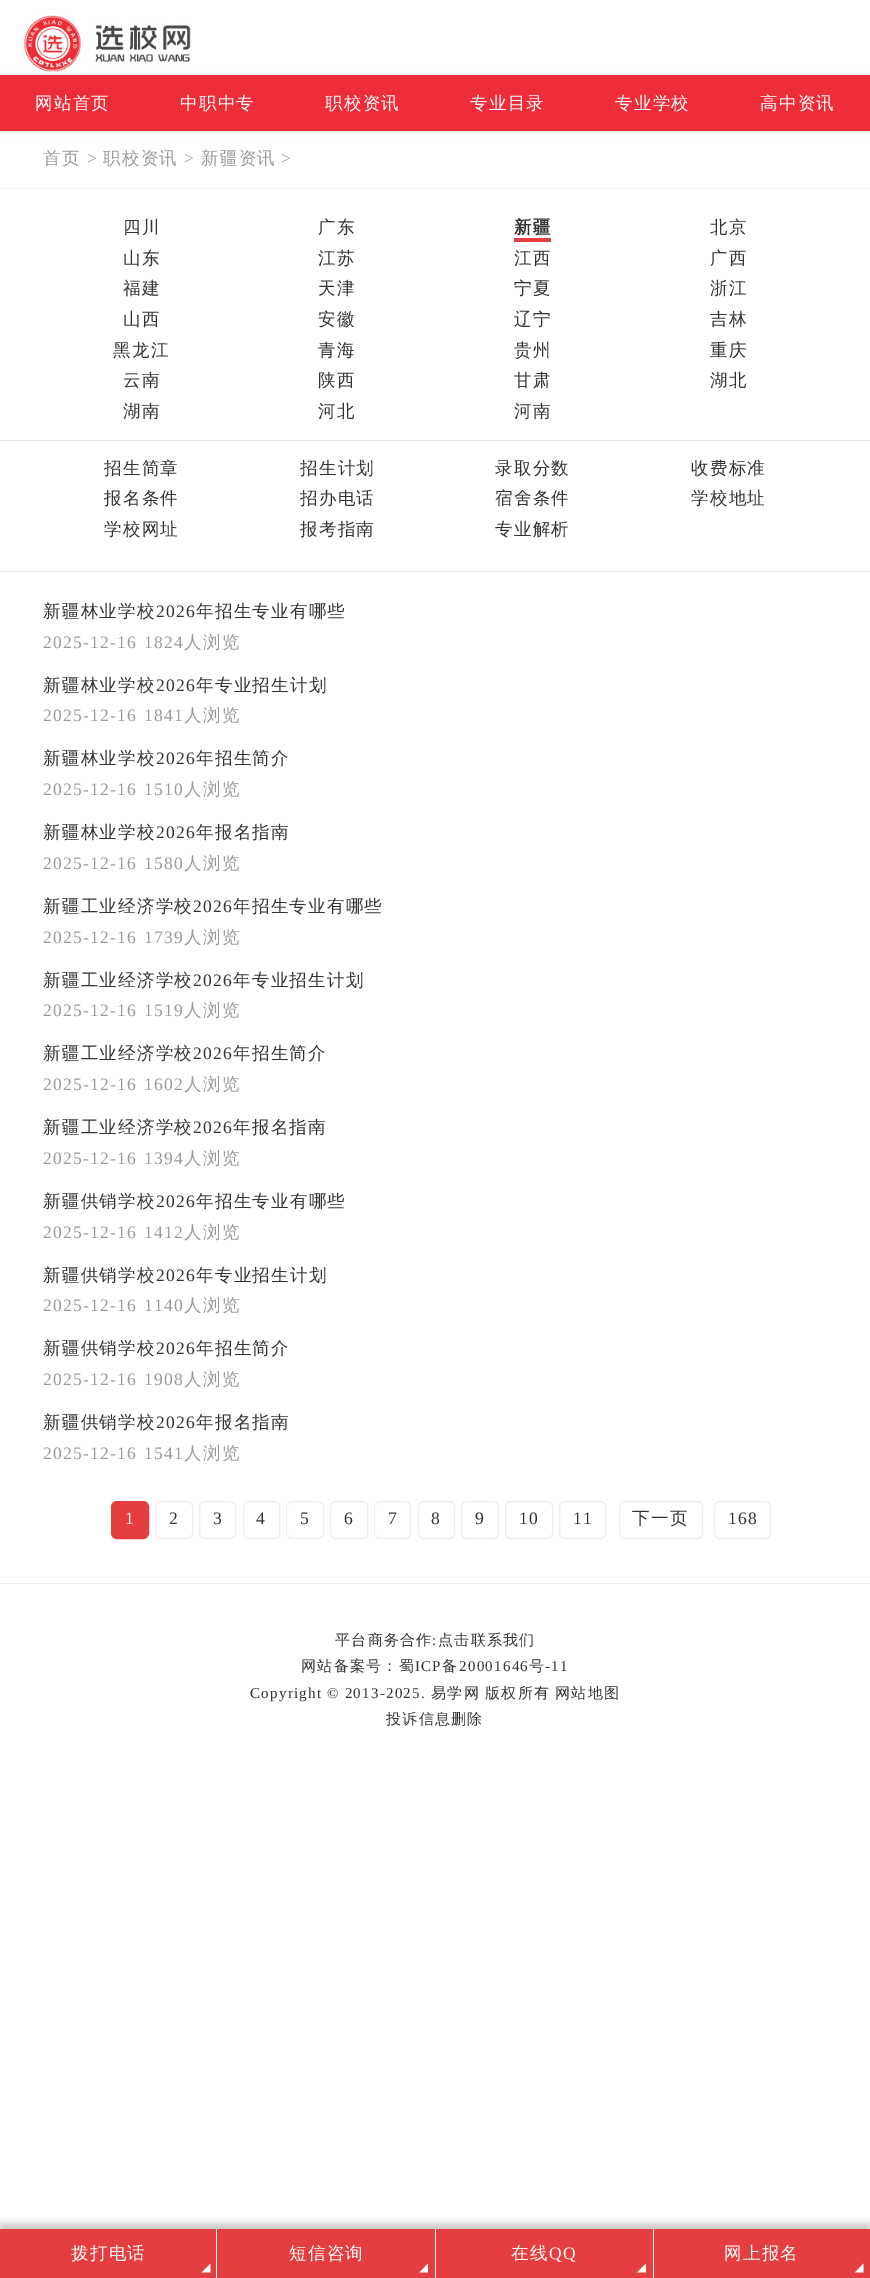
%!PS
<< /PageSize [870 2278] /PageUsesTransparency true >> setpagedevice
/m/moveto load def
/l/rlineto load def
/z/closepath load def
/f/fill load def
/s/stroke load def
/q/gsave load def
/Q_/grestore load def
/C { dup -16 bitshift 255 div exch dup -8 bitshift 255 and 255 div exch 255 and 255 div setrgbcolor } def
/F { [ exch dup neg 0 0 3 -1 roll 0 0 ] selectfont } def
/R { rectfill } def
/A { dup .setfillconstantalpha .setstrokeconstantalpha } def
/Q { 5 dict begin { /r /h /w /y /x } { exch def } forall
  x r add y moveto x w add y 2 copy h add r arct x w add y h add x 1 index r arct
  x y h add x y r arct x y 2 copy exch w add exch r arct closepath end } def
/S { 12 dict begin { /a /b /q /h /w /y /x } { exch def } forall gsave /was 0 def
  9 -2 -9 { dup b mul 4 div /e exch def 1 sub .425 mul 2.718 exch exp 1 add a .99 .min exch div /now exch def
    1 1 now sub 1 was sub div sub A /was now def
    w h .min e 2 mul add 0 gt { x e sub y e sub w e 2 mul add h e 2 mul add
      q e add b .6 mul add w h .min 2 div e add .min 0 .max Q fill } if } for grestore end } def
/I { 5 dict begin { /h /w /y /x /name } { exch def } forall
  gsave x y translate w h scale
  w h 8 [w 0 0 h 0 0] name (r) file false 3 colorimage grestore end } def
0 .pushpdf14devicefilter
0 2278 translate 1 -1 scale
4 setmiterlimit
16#FFFFFF C
0 0 870 2278 R
16#000000 C
0 76 870 57 0 2 .1 S
(1.rgb) 23 15 168 57 I
16#ED2D38 C
0 75 870 56 R
/WenQuanYiZenHei-Medium 17.5 F
16#FFFFFF C
35 109 m 1.25 0 (网站首页) ashow
180 109 m 1.25 0 (中职中专) ashow
325 109 m 1.25 0 (职校资讯) ashow
470 109 m 1.25 0 (专业目录) ashow
615 109 m 1.25 0 (专业学校) ashow
760 109 m 1.25 0 (高中资讯) ashow
16#999999 C
43 164 m 1.25 0 (首页) ashow
/LiberationSerif-Regular 17.5 F
87 164 m 1.25 0 (>) ashow
/WenQuanYiZenHei-Medium 17.5 F
103 164 m 1.25 0 (职校资讯) ashow
/LiberationSerif-Regular 17.5 F
184 164 m 1.25 0 (>) ashow
/WenQuanYiZenHei-Medium 17.5 F
201 164 m 1.25 0 (新疆资讯) ashow
/LiberationSerif-Regular 17.5 F
281 164 m 1.25 0 (>) ashow
16#F5F5F5 C
0 188 870 1 R
16#E5E5E5 C
0 571 870 1 R
0 440 870 1 R
/WenQuanYiZenHei-Medium 17.5 F
16#333333 C
123 233 m 1.25 0 (四川) ashow
318 233 m 1.25 0 (广东) ashow
/WenQuanYiZenHei-Bold 17.5 F
514 233 m 1.25 0 (新疆) ashow
16#E53E40 C
514 238 37 4 R
/WenQuanYiZenHei-Medium 17.5 F
16#333333 C
710 233 m 1.25 0 (北京) ashow
123 264 m 1.25 0 (山东) ashow
318 264 m 1.25 0 (江苏) ashow
514 264 m 1.25 0 (江西) ashow
710 264 m 1.25 0 (广西) ashow
123 294 m 1.25 0 (福建) ashow
318 294 m 1.25 0 (天津) ashow
514 294 m 1.25 0 (宁夏) ashow
710 294 m 1.25 0 (浙江) ashow
123 325 m 1.25 0 (山西) ashow
318 325 m 1.25 0 (安徽) ashow
514 325 m 1.25 0 (辽宁) ashow
710 325 m 1.25 0 (吉林) ashow
113 356 m 1.25 0 (黑龙江) ashow
318 356 m 1.25 0 (青海) ashow
514 356 m 1.25 0 (贵州) ashow
710 356 m 1.25 0 (重庆) ashow
123 386 m 1.25 0 (云南) ashow
318 386 m 1.25 0 (陕西) ashow
514 386 m 1.25 0 (甘肃) ashow
710 386 m 1.25 0 (湖北) ashow
123 417 m 1.25 0 (湖南) ashow
318 417 m 1.25 0 (河北) ashow
514 417 m 1.25 0 (河南) ashow
104 474 m 1.25 0 (招生简章) ashow
300 474 m 1.25 0 (招生计划) ashow
495 474 m 1.25 0 (录取分数) ashow
691 474 m 1.25 0 (收费标准) ashow
104 504 m 1.25 0 (报名条件) ashow
300 504 m 1.25 0 (招办电话) ashow
495 504 m 1.25 0 (宿舍条件) ashow
691 504 m 1.25 0 (学校地址) ashow
104 535 m 1.25 0 (学校网址) ashow
300 535 m 1.25 0 (报考指南) ashow
495 535 m 1.25 0 (专业解析) ashow
43 617 m 1.25 0 (新疆林业学校) ashow
/LiberationSerif-Regular 17.5 F
156 617 m 1.25 0 (2026) ashow
/WenQuanYiZenHei-Medium 17.5 F
196 617 m 1.25 0 (年招生专业有哪些) ashow
/LiberationSerif-Regular 17.5 F
16#999999 C
43 648 m 1.25 0 (2025-12-16) ashow
144 648 m 1.25 0 (1824) ashow
/WenQuanYiZenHei-Medium 17.5 F
184 648 m 1.25 0 (人浏览) ashow
16#333333 C
43 691 m 1.25 0 (新疆林业学校) ashow
/LiberationSerif-Regular 17.5 F
156 691 m 1.25 0 (2026) ashow
/WenQuanYiZenHei-Medium 17.5 F
196 691 m 1.25 0 (年专业招生计划) ashow
/LiberationSerif-Regular 17.5 F
16#999999 C
43 721 m 1.25 0 (2025-12-16) ashow
144 721 m 1.25 0 (1841) ashow
/WenQuanYiZenHei-Medium 17.5 F
184 721 m 1.25 0 (人浏览) ashow
16#333333 C
43 764 m 1.25 0 (新疆林业学校) ashow
/LiberationSerif-Regular 17.5 F
156 764 m 1.25 0 (2026) ashow
/WenQuanYiZenHei-Medium 17.5 F
196 764 m 1.25 0 (年招生简介) ashow
/LiberationSerif-Regular 17.5 F
16#999999 C
43 795 m 1.25 0 (2025-12-16) ashow
144 795 m 1.25 0 (1510) ashow
/WenQuanYiZenHei-Medium 17.5 F
184 795 m 1.25 0 (人浏览) ashow
16#333333 C
43 838 m 1.25 0 (新疆林业学校) ashow
/LiberationSerif-Regular 17.5 F
156 838 m 1.25 0 (2026) ashow
/WenQuanYiZenHei-Medium 17.5 F
196 838 m 1.25 0 (年报名指南) ashow
/LiberationSerif-Regular 17.5 F
16#999999 C
43 869 m 1.25 0 (2025-12-16) ashow
144 869 m 1.25 0 (1580) ashow
/WenQuanYiZenHei-Medium 17.5 F
184 869 m 1.25 0 (人浏览) ashow
16#333333 C
43 912 m 1.25 0 (新疆工业经济学校) ashow
/LiberationSerif-Regular 17.5 F
193 912 m 1.25 0 (2026) ashow
/WenQuanYiZenHei-Medium 17.5 F
233 912 m 1.25 0 (年招生专业有哪些) ashow
/LiberationSerif-Regular 17.5 F
16#999999 C
43 943 m 1.25 0 (2025-12-16) ashow
144 943 m 1.25 0 (1739) ashow
/WenQuanYiZenHei-Medium 17.5 F
184 943 m 1.25 0 (人浏览) ashow
16#333333 C
43 986 m 1.25 0 (新疆工业经济学校) ashow
/LiberationSerif-Regular 17.5 F
193 986 m 1.25 0 (2026) ashow
/WenQuanYiZenHei-Medium 17.5 F
233 986 m 1.25 0 (年专业招生计划) ashow
/LiberationSerif-Regular 17.5 F
16#999999 C
43 1016 m 1.25 0 (2025-12-16) ashow
144 1016 m 1.25 0 (1519) ashow
/WenQuanYiZenHei-Medium 17.5 F
184 1016 m 1.25 0 (人浏览) ashow
16#333333 C
43 1059 m 1.25 0 (新疆工业经济学校) ashow
/LiberationSerif-Regular 17.5 F
193 1059 m 1.25 0 (2026) ashow
/WenQuanYiZenHei-Medium 17.5 F
233 1059 m 1.25 0 (年招生简介) ashow
/LiberationSerif-Regular 17.5 F
16#999999 C
43 1090 m 1.25 0 (2025-12-16) ashow
144 1090 m 1.25 0 (1602) ashow
/WenQuanYiZenHei-Medium 17.5 F
184 1090 m 1.25 0 (人浏览) ashow
16#333333 C
43 1133 m 1.25 0 (新疆工业经济学校) ashow
/LiberationSerif-Regular 17.5 F
193 1133 m 1.25 0 (2026) ashow
/WenQuanYiZenHei-Medium 17.5 F
233 1133 m 1.25 0 (年报名指南) ashow
/LiberationSerif-Regular 17.5 F
16#999999 C
43 1164 m 1.25 0 (2025-12-16) ashow
144 1164 m 1.25 0 (1394) ashow
/WenQuanYiZenHei-Medium 17.5 F
184 1164 m 1.25 0 (人浏览) ashow
16#333333 C
43 1207 m 1.25 0 (新疆供销学校) ashow
/LiberationSerif-Regular 17.5 F
156 1207 m 1.25 0 (2026) ashow
/WenQuanYiZenHei-Medium 17.5 F
196 1207 m 1.25 0 (年招生专业有哪些) ashow
/LiberationSerif-Regular 17.5 F
16#999999 C
43 1238 m 1.25 0 (2025-12-16) ashow
144 1238 m 1.25 0 (1412) ashow
/WenQuanYiZenHei-Medium 17.5 F
184 1238 m 1.25 0 (人浏览) ashow
16#333333 C
43 1281 m 1.25 0 (新疆供销学校) ashow
/LiberationSerif-Regular 17.5 F
156 1281 m 1.25 0 (2026) ashow
/WenQuanYiZenHei-Medium 17.5 F
196 1281 m 1.25 0 (年专业招生计划) ashow
/LiberationSerif-Regular 17.5 F
16#999999 C
43 1311 m 1.25 0 (2025-12-16) ashow
144 1311 m 1.25 0 (1140) ashow
/WenQuanYiZenHei-Medium 17.5 F
184 1311 m 1.25 0 (人浏览) ashow
16#333333 C
43 1354 m 1.25 0 (新疆供销学校) ashow
/LiberationSerif-Regular 17.5 F
156 1354 m 1.25 0 (2026) ashow
/WenQuanYiZenHei-Medium 17.5 F
196 1354 m 1.25 0 (年招生简介) ashow
/LiberationSerif-Regular 17.5 F
16#999999 C
43 1385 m 1.25 0 (2025-12-16) ashow
144 1385 m 1.25 0 (1908) ashow
/WenQuanYiZenHei-Medium 17.5 F
184 1385 m 1.25 0 (人浏览) ashow
16#333333 C
43 1428 m 1.25 0 (新疆供销学校) ashow
/LiberationSerif-Regular 17.5 F
156 1428 m 1.25 0 (2026) ashow
/WenQuanYiZenHei-Medium 17.5 F
196 1428 m 1.25 0 (年报名指南) ashow
/LiberationSerif-Regular 17.5 F
16#999999 C
43 1459 m 1.25 0 (2025-12-16) ashow
144 1459 m 1.25 0 (1541) ashow
/WenQuanYiZenHei-Medium 17.5 F
184 1459 m 1.25 0 (人浏览) ashow
16#E53E40 C
111.5 1501.5 37 37 5.5 Q q f Q_
s
/LiberationSerif-Regular 17.5 F
16#FFFFFF C
125 1524 m 1.25 0 (1) ashow
16#EDEDED C
155.5 1501.5 37 37 5.5 Q s
16#333333 C
169 1524 m 1.25 0 (2) ashow
16#EDEDED C
199.5 1501.5 36 37 5.5 Q s
16#333333 C
213 1524 m 1.25 0 (3) ashow
16#EDEDED C
243.5 1501.5 36 37 5.5 Q s
16#333333 C
256 1524 m 1.25 0 (4) ashow
16#EDEDED C
286.5 1501.5 37 37 5.5 Q s
16#333333 C
300 1524 m 1.25 0 (5) ashow
16#EDEDED C
330.5 1501.5 37 37 5.5 Q s
16#333333 C
344 1524 m 1.25 0 (6) ashow
16#EDEDED C
374.5 1501.5 36 37 5.5 Q s
16#333333 C
388 1524 m 1.25 0 (7) ashow
16#EDEDED C
418.5 1501.5 36 37 5.5 Q s
16#333333 C
431 1524 m 1.25 0 (8) ashow
16#EDEDED C
461.5 1501.5 37 37 5.5 Q s
16#333333 C
475 1524 m 1.25 0 (9) ashow
16#EDEDED C
505.5 1501.5 47 37 5.5 Q s
16#333333 C
519 1524 m 1.25 0 (10) ashow
16#EDEDED C
559.5 1501.5 46 37 5.5 Q s
16#333333 C
573 1524 m 1.25 0 (11) ashow
16#EDEDED C
619.5 1501.5 83 37 5.5 Q s
/WenQuanYiZenHei-Medium 17.5 F
16#333333 C
632 1524 m 1.25 0 (下一页) ashow
16#EDEDED C
714.5 1501.5 56 37 5.5 Q s
/LiberationSerif-Regular 17.5 F
16#333333 C
728 1524 m 1.25 0 (168) ashow
16#EEEEEE C
0 1583 870 1 R
/WenQuanYiZenHei-Medium 15 F
16#333333 C
335 1645 m 1.25 0 (平台商务合作) ashow
/LiberationSerif-Regular 15 F
432 1645 m 1.25 0 (:) ashow
/WenQuanYiZenHei-Medium 15 F
438 1645 m 1.25 0 (点击联系我们) ashow
301 1671 m 1.25 0 (网站备案号：蜀) ashow
/LiberationSerif-Regular 15 F
415 1671 m 1.25 0 (ICP) ashow
/WenQuanYiZenHei-Medium 15 F
442 1671 m 1.25 0 (备) ashow
/LiberationSerif-Regular 15 F
459 1671 m 1.25 0 (20001646) ashow
/WenQuanYiZenHei-Medium 15 F
529 1671 m 1.25 0 (号) ashow
/LiberationSerif-Regular 15 F
545 1671 m 1.25 0 (-11) ashow
250 1698 m 1.25 0 (Copyright © 2013-2025.) ashow
/WenQuanYiZenHei-Medium 15 F
431 1698 m 1.25 0 (易学网) ashow
485 1698 m 1.25 0 (版权所有) ashow
555 1698 m 1.25 0 (网站地图) ashow
386 1724 m 1.25 0 (投诉信息删除) ashow
16#000000 C
0 2223 870 50 0 3 .2 S
16#E53E40 C
0 2229 870 49 R
16#FFFFFF C
216 2229 1 49 R
/WenQuanYiZenHei-Medium 17.5 F
71 2259 m 1.25 0 (拨打电话) ashow
201.5 2272.5 m 9 -9 l 0 9 l z f
435 2229 1 49 R
289 2259 m 1.25 0 (短信咨询) ashow
419.5 2272.5 m 8.5 -9 l 0 9 l z f
653 2229 1 49 R
511 2259 m 1.25 0 (在线) ashow
/LiberationSerif-Regular 17.5 F
549 2259 m 1.25 0 (QQ) ashow
637 2272.5 m 9 -9 l 0 9 l z f
/WenQuanYiZenHei-Medium 17.5 F
724 2259 m 1.25 0 (网上报名) ashow
855 2272.5 m 8.5 -9 l 0 9 l z f
.poppdf14devicefilter showpage
